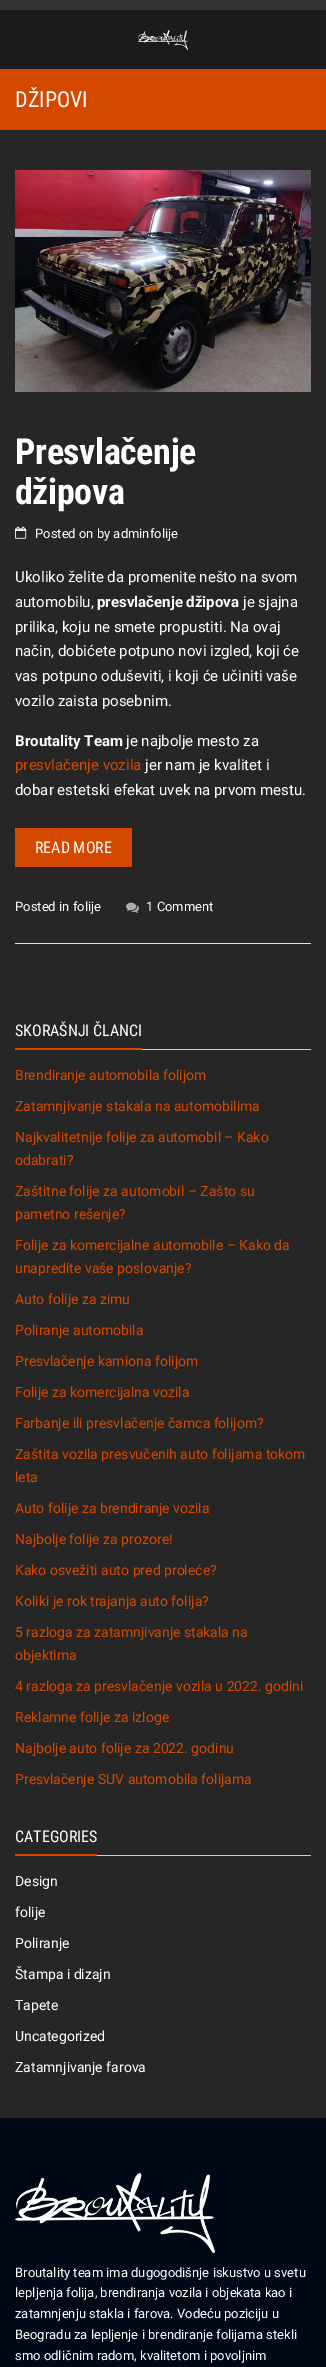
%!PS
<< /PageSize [326 2367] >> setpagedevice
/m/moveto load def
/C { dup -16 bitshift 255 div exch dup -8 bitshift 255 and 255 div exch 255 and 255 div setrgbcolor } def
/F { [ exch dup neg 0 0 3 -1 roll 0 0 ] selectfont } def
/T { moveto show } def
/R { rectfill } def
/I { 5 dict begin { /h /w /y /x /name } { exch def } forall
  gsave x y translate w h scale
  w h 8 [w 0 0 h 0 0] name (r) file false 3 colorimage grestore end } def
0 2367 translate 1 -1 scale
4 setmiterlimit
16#262626 C
0 0 326 2367 R
16#333333 C
0 0 326 10 R
16#1B1B1B C
0 10 326 59 R
(1.rgb) 138 30 50 20 I
16#D54800 C
0 69 326 61 R
/RobotoCondensed-Regular 22 F
16#FFFFFF C
(DŽIPOVI) 15 107 T
(2.rgb) 15 170 296 222 I
/RobotoCondensed-Bold 36 F
15 464 m -.4 0 (Presvlačenje) ashow
15 504 m -.4 0 (džipova) ashow
(3.rgb) 15 526 12 13 I
/Roboto-Regular 13 F
(Posted on by adminfolije) 35 538 T
/Roboto-Regular 15 F
(Ukoliko želite da promenite nešto na svom) 15 582 T
(automobilu,) 15 607 T
/Roboto-Bold 15 F
(presvlačenje džipova) 97 607 T
/Roboto-Regular 15 F
(je sjajna) 243 607 T
(prilika, koju ne smete propustiti. Na ovaj) 15 632 T
(način, dobićete potpuno novi izgled, koji će) 15 656 T
(vas potpuno oduševiti, i koji će učiniti vaše) 15 681 T
(vozilo zaista posebnim.) 15 706 T
/Roboto-Bold 15 F
(Broutality Team) 15 746 T
/Roboto-Regular 15 F
(je najbolje mesto za) 126 746 T
16#D54800 C
(presvlačenje vozila) 15 770 T
16#FFFFFF C
(jer nam je kvalitet i) 145 770 T
(dobar estetski efekat uvek na prvom mestu.) 15 795 T
16#D54800 C
15 828 117 39 R
/RobotoCondensed-Regular 16 F
16#FFFFFF C
(READ MORE) 35 853 T
16#E2E2E2 C
15 943 296 1 R
/Roboto-Regular 13 F
16#FFFFFF C
(Posted in folije) 15 911 T
(4.rgb) 126 902 13 11 I
(1 Comment) 146 911 T
16#CCCCCC C
142 1049 169 1 R
16#D54800 C
15 1048 127 2 R
/RobotoCondensed-Regular 16 F
16#FFFFFF C
(SKORAŠNJI ČLANCI) 15 1036 T
/Roboto-Regular 14 F
16#D54800 C
(Brendiranje automobila folijom) 15 1080 T
(Zatamnjivanje stakala na automobilima) 15 1111 T
(Najkvalitetnije folije za automobil – Kako) 15 1142 T
(odabrati?) 15 1165 T
(Zaštitne folije za automobil – Zašto su) 15 1196 T
(pametno rešenje?) 15 1219 T
(Folije za komercijalne automobile – Kako da) 15 1250 T
(unapredite vaše poslovanje?) 15 1273 T
(Auto folije za zimu) 15 1304 T
(Poliranje automobila) 15 1335 T
(Presvlačenje kamiona folijom) 15 1366 T
(Folije za komercijalna vozila) 15 1397 T
(Farbanje ili presvlačenje čamca folijom?) 15 1428 T
(Zaštita vozila presvučenih auto folijama tokom) 15 1459 T
(leta) 15 1482 T
(Auto folije za brendiranje vozila) 15 1513 T
(Najbolje folije za prozore!) 15 1544 T
(Kako osvežiti auto pred proleće?) 15 1575 T
(Koliki je rok trajanja auto folija?) 15 1606 T
(5 razloga za zatamnjivanje stakala na) 15 1637 T
(objektima) 15 1660 T
(4 razloga za presvlačenje vozila u 2022. godini) 15 1691 T
(Reklamne folije za izloge) 15 1722 T
(Najbolje auto folije za 2022. godinu) 15 1753 T
(Presvlačenje SUV automobila folijama) 15 1784 T
16#CCCCCC C
97 1855 214 1 R
16#D54800 C
15 1854 82 2 R
/RobotoCondensed-Regular 16 F
16#FFFFFF C
(CATEGORIES) 15 1842 T
/Roboto-Regular 14 F
(Design) 15 1886 T
(folije) 15 1917 T
(Poliranje) 15 1948 T
(Štampa i dizajn) 15 1979 T
(Tapete) 15 2010 T
(Uncategorized) 15 2041 T
(Zatamnjivanje farova) 15 2072 T
16#000915 C
0 2118 326 249 R
(5.rgb) 15 2173 200 80 I
/Roboto-Regular 13 F
16#FFFFFF C
(Broutality team ima dugogodišnje iskustvo u svetu) 15 2277 T
(lepljenja folija, brendiranja vozila i objekata kao i) 15 2297 T
(zatamnjenju stakla i farova. Vodeću poziciju u) 15 2318 T
(Beogradu za lepljenje i brendiranje folijama stekli) 15 2339 T
(smo odličnim radom, kvalitetom i povoljnim) 15 2360 T
showpage
